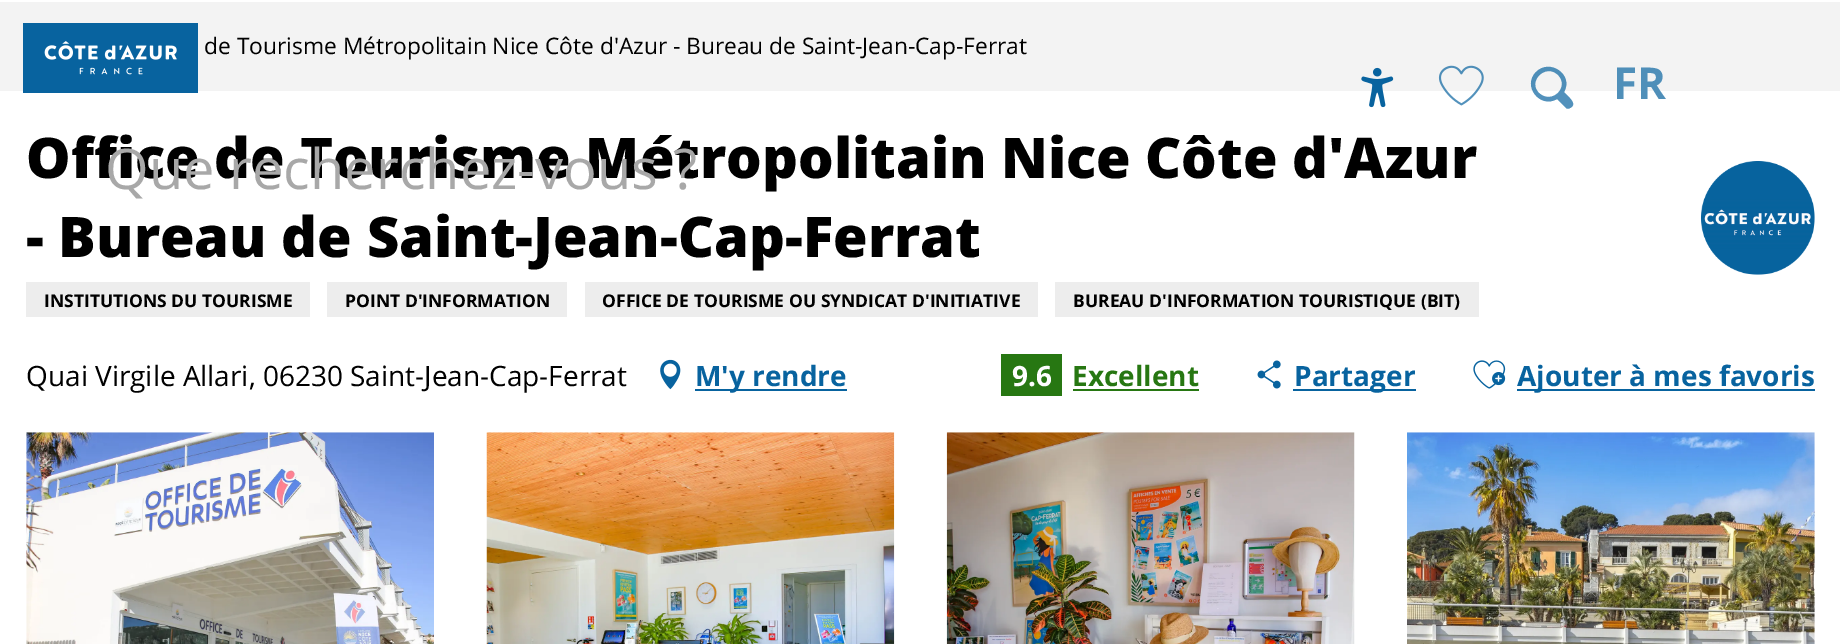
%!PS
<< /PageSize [1840 644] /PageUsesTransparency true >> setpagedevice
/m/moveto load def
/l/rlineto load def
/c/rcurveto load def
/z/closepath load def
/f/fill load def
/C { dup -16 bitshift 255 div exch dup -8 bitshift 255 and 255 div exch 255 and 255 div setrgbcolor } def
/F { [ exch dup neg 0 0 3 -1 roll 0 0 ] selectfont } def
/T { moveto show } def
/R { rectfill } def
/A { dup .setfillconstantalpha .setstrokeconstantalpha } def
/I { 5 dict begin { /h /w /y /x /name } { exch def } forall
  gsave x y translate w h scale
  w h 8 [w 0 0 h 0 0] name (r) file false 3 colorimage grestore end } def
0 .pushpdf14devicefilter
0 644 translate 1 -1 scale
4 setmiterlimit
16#FFFFFF C
0 0 1840 644 R
16#F3F3F3 C
0 2 1840 89 R
(1.rgb) 23 23 175 70 I
/OpenSans-Regular 22.75 F
16#000000 C
(de Tourisme Métropolitain Nice Côte d'Azur - Bureau de Saint-Jean-Cap-Ferrat) 204 54 T
/OpenSans-ExtraBold 56 F
(Office de Tourisme Métropolitain Nice Côte d'Azur) 26 178 T
(- Bureau de Saint-Jean-Cap-Ferrat) 26 257 T
16#EDEDED C
26 282 284 35 R
/OpenSans-Bold 17.5 F
16#000000 C
(INSTITUTIONS DU TOURISME) 44 307 T
16#EDEDED C
327 282 240 35 R
16#000000 C
(POINT D'INFORMATION) 345 307 T
16#EDEDED C
585 282 453 35 R
16#000000 C
(OFFICE DE TOURISME OU SYNDICAT D'INITIATIVE) 602 307 T
16#EDEDED C
1055 282 424 35 R
16#000000 C
(BUREAU D'INFORMATION TOURISTIQUE \(BIT\)) 1073 307 T
(2.rgb) 1701 161 114 114 I
/OpenSans-Regular 28 F
(Quai Virgile Allari, 06230 Saint-Jean-Cap-Ferrat) 26 386 T
(3.rgb) 660 359 21 31 I
16#08639F C
695 389 152 2 R
/OpenSans-Bold 28 F
(M'y rendre) 695 386 T
16#277712 C
1001 354 61 42 R
16#FEFEFE C
(9.6) 1012 386 T
16#277712 C
(Excellent) 1072 386 T
1073 389 126 2 R
(4.rgb) 1257 360 24 29 I
16#08639F C
1293 389 123 2 R
(Partager) 1294 386 T
(5.rgb) 1473 360 33 29 I
1517 389 298 2 R
(Ajouter à mes favoris) 1517 386 T
(6.rgb) 26 432 408 212 I
(7.rgb) 486 432 409 212 I
(8.rgb) 946 432 409 212 I
(9.rgb) 1407 432 408 212 I
(10.rgb) 1361 67 33 41 I
(11.rgb) 1438 65 46 41 I
0.7 A
1536 72 m 14 -14 38 3 28 20 c 2 3 15 12 6 16 c -1 1 -3 1 -4 0 c -9 -9 l -17 10 -35 -13 -21 -27 c z 1539 93 m 13 12 31 -6 19 -18 c -12 -12 -31 6 -19 18 c z f
/OpenSans-Bold 44 F
1 A
16#4F8FB9 C
(FR) 1613 99 T
/OpenSans-Regular 56 F
16#A8A8A8 C
(Que recherchez-vous ?) 105 189 T
.poppdf14devicefilter showpage
